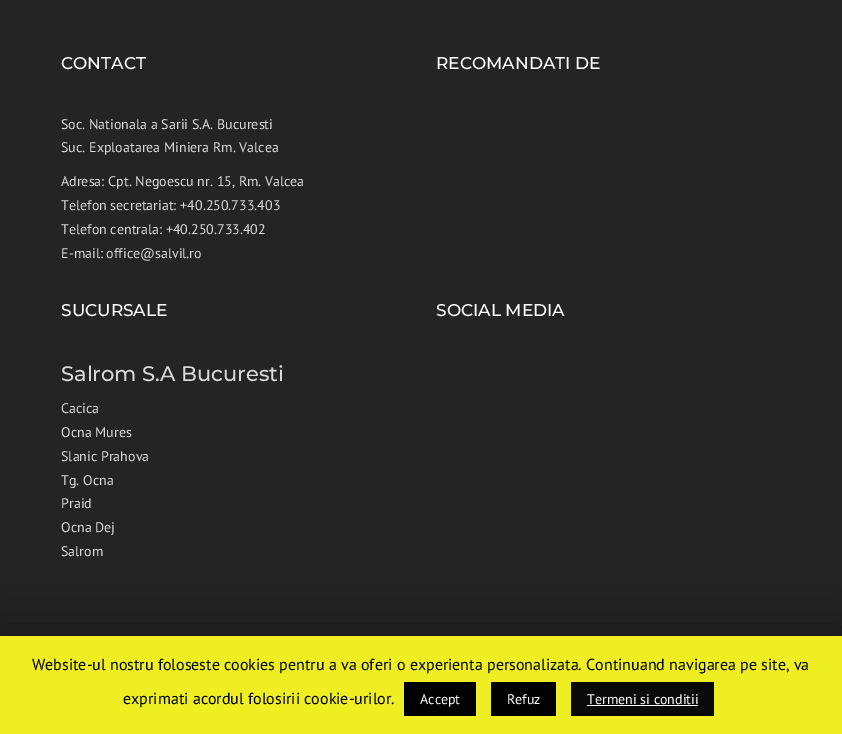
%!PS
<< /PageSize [842 734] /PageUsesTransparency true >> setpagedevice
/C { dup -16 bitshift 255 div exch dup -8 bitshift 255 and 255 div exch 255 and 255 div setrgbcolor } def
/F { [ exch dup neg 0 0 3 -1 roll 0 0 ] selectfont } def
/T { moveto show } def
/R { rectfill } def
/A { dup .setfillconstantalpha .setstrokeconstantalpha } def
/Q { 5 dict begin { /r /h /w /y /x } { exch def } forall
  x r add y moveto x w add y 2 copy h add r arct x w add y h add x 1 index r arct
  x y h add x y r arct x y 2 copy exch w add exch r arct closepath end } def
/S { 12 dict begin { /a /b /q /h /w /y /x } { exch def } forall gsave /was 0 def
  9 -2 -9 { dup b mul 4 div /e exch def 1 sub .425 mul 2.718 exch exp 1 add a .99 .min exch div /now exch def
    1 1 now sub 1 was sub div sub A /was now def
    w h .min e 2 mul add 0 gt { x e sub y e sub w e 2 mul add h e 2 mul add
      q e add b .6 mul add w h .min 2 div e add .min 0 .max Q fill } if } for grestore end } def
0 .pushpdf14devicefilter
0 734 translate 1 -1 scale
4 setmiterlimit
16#242424 C
0 0 842 734 R
/Montserrat-Medium 17 F
16#FFFFFF C
(CONTACT) 61 69 T
/PTSans-Regular 14 F
16#D9D9D9 C
(Soc. Nationala a Sarii S.A. Bucuresti) 61 129 T
(Suc. Exploatarea Miniera Rm. Valcea) 61 152 T
(Adresa: Cpt. Negoescu nr. 15, Rm. Valcea) 61 186 T
(Telefon secretariat: +40.250.733.403) 61 210 T
(Telefon centrala: +40.250.733.402) 61 234 T
(E-mail: office@salvil.ro) 61 258 T
/Montserrat-Medium 17 F
16#FFFFFF C
(RECOMANDATI DE) 436 69 T
(SUCURSALE) 61 316 T
/Montserrat-Medium 21 F
16#D9D9D9 C
(Salrom S.A Bucuresti) 61 381 T
/PTSans-Regular 14 F
(Cacica) 61 413 T
(Ocna Mures) 61 437 T
(Slanic Prahova) 61 461 T
(Tg. Ocna) 61 485 T
(Praid) 61 508 T
(Ocna Dej) 61 532 T
(Salrom) 61 556 T
/Montserrat-Medium 17 F
16#FFFFFF C
(SOCIAL MEDIA) 436 316 T
16#000000 C
0 641 842 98 0 25 .5 S
16#EEEE22 C
0 636 842 98 R
/PTSans-Regular 16 F
16#000000 C
(Website-ul nostru foloseste cookies pentru a va oferi o experienta personalizata. Continuand navigarea pe site, va) 32 670 T
(exprimati acordul folosirii cookie-urilor.) 123 704 T
404 682 72 34 R
/PTSans-Regular 14 F
16#FFFFFF C
(Accept) 420 704 T
16#000000 C
491 682 65 34 R
16#FFFFFF C
(Refuz) 507 704 T
16#0A0A0A C
571 682 143 34 R
16#FFFFFF C
(Termeni si conditii) 587 704 T
587 705 111 1 R
.poppdf14devicefilter showpage
